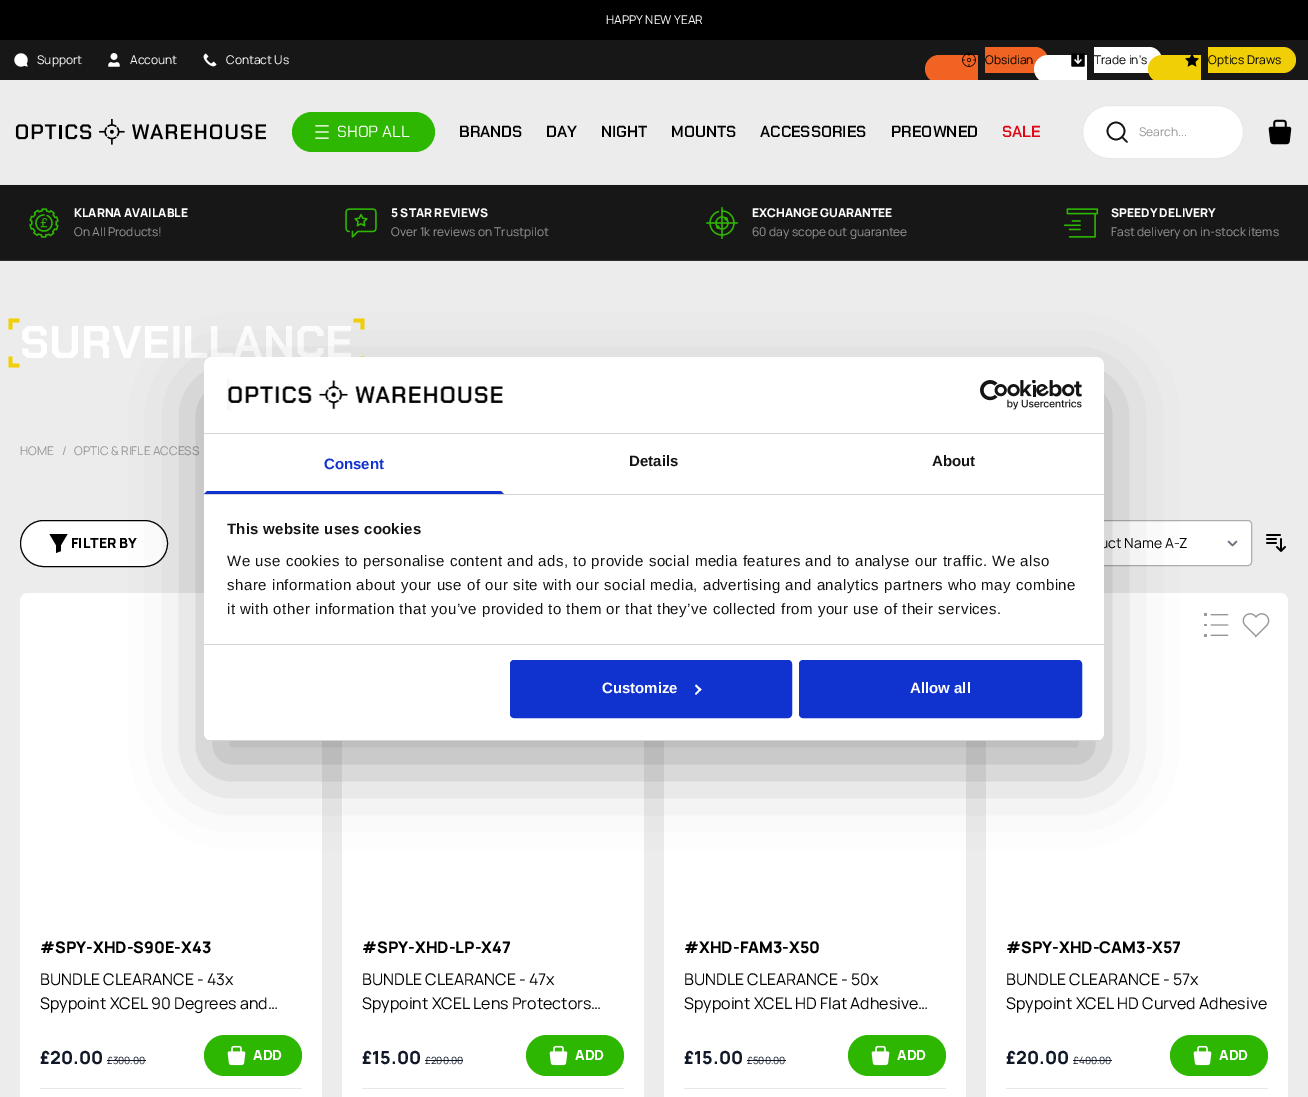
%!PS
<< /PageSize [1308 1097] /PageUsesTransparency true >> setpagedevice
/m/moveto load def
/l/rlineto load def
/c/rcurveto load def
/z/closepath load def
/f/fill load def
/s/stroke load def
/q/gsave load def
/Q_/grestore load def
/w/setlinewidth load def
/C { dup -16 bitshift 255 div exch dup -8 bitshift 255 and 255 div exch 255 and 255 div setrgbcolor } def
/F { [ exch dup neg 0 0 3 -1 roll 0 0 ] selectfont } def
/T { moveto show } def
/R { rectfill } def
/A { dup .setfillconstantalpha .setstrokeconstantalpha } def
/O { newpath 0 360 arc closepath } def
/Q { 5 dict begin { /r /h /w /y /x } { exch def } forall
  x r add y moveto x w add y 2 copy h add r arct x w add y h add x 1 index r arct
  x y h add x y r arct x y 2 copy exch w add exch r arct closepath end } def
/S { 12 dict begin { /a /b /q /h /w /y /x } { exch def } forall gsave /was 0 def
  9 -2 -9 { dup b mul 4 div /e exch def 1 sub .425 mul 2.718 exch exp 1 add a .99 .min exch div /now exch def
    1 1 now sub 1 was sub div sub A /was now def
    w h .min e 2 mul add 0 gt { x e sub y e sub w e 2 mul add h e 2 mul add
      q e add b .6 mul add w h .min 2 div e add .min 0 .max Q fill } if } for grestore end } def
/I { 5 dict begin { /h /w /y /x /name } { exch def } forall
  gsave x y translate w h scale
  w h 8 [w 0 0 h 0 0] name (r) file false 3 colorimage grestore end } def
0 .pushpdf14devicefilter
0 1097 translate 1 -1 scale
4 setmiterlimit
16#ECECEC C
0 0 1308 1097 R
16#000000 C
0 0 1308 40 R
/Manrope-ExtraLight 12 F
16#FFFFFF C
(HAPPY NEW YEAR) 606 24 T
16#171717 C
0 40 1308 40 R
(1.rgb) 14 53 14 14 I
16#FFFFFF C
(Support) 37 64 T
(2.rgb) 108 53 12 14 I
(Account) 130 64 T
(3.rgb) 203 53 14 14 I
(Contact Us) 226 64 T
16#F06322 C
939 55 m 39 0 l 0 28 l -39 0 l -7.5 0 -14 -6.5 -14 -14 c 0 -7.5 6.5 -14 14 -14 c z f
985 47 m 50 0 l 7 0 13 6 13 13 c 0 7 -6 13 -13 13 c -50 0 l z f
(4.rgb) 962 53 14 14 I
16#000000 C
(Obsidian) 985 64 T
16#FFFFFF C
1048 55 m 39 0 l 0 28 l -39 0 l -7.5 0 -14 -6.5 -14 -14 c 0 -7.5 6.5 -14 14 -14 c z f
1094 47 m 55 0 l 7 0 13 6 13 13 c 0 7 -6 13 -13 13 c -55 0 l z f
(5.rgb) 1071 53 14 14 I
16#000000 C
(Trade in's) 1094 64 T
16#F1CF07 C
1162 55 m 39 0 l 0 28 l -39 0 l -7.5 0 -14 -6.5 -14 -14 c 0 -7.5 6.5 -14 14 -14 c z f
1208 47 m 75 0 l 7 0 13 6 13 13 c 0 7 -6 13 -13 13 c -75 0 l z f
(6.rgb) 1185 54 14 13 I
16#000000 C
(Optics Draws) 1208 64 T
16#ECECEC C
930 80 271 3 R
16#E5E7EB C
0 184 1308 1 R
(7.rgb) 15 118 252 27 I
16#2EB700 C
292 112 143 40 20 Q f
(8.rgb) 315 125 14 14 I
/ChakraPetch-Regular 16 F
16#FFFFFF C
(SHOP ALL) 337 137 T
/ChakraPetch-SemiBold 16 F
16#000000 C
(BRANDS) 459 137 T
(DAY) 546 137 T
(NIGHT) 601 137 T
(MOUNTS) 671 137 T
(ACCESSORIES) 760 137 T
(PREOWNED) 891 137 T
16#E10616 C
(SALE) 1002 137 T
16#FFFFFF C
1082.5 105.5 161 53 26.5 Q q f Q_
16#E5E7E9 C
s
16#171717 C
1.7 w
1116 131 8.5 O s
1 setlinecap
1 setlinejoin
1122 137 m 5 5 l s
/Manrope-ExtraLight 12 F
16#949698 C
(Search...) 1139 136 T
(9.rgb) 1268 119 24 26 I
16#171717 C
0 185 1308 75 R
16#2D2E2E C
0 260 1308 1 R
(10.rgb) 29 208 30 30 I
/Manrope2-ExtraLight 12 F
16#FFFFFF C
(KLARNA AVAILABLE) 74 217 T
/Manrope-ExtraLight 12 F
16#949698 C
(On All Products!) 74 236 T
(11.rgb) 345 208 32 30 I
/Manrope2-ExtraLight 12 F
16#FFFFFF C
(5 STAR REVIEWS) 391 217 T
/Manrope-ExtraLight 12 F
16#949698 C
(Over 1k reviews on Trustpilot) 391 236 T
(12.rgb) 706 207 32 32 I
/Manrope2-ExtraLight 12 F
16#FFFFFF C
(EXCHANGE GUARANTEE) 752 217 T
/Manrope-ExtraLight 12 F
16#949698 C
(60 day scope out guarantee) 752 236 T
(13.rgb) 1063 208 36 30 I
/Manrope2-ExtraLight 12 F
16#FFFFFF C
(SPEEDY DELIVERY) 1111 217 T
/Manrope-ExtraLight 12 F
16#949698 C
(Fast delivery on in-stock items) 1111 236 T
16#F1CF07 C
3.7 w
0 setlinecap
0 setlinejoin
10.5 329.5 m 0 -9 l 9 0 l s
/ChakraPetch-Bold 45.75 F
16#FFFFFF C
(SURVEILLANCE) 20 358 T
16#F1CF07 C
353.5 320.5 m 9 0 l 0 9 l s
19.5 365.5 m -9 0 l 0 -9 l s
362.5 356.5 m 0 9 l -9 0 l s
/Manrope-ExtraLight 12 F
16#949698 C
(HOME) 20 455 T
(/) 62 455 T
(OPTIC & RIFLE ACCESS) 74 455 T
16#FFFFFF C
20.5 520.5 147 46 23 Q q f Q_
16#000000 C
1 w
s
67.5 534 m -18 0 l 6.5 11 l 0 8 l 5 -2 l 0 -6 l z f
/Manrope2-ExtraLight 14 F
(FILTER BY) 71 548 T
16#FFFFFF C
1057 520 195 46 4 Q f
16#6B7280 C
1.6 w
1 setlinecap
1 setlinejoin
1228.5 541.5 m 4 4 l 4 -4 l s
16#ADAEAF C
1 w
0 setlinecap
0 setlinejoin
1057.5 520.5 194 45 3.5 Q s
/Manrope-ExtraLight 14 F
16#000000 C
(uct Name A-Z) 1100 548 T
(14.rgb) 1266 534 20 18 I
16#FFFFFF C
20 593 302 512 8 Q f
/Manrope2-ExtraLight 16 F
16#000000 C
(#SPY-XHD-S90E-X43) 40 953 T
/Manrope-ExtraLight 16 F
(BUNDLE CLEARANCE - 43x) 40 985 T
(Spypoint XCEL 90 Degrees and…) 40 1009 T
/Manrope2-ExtraLight 18 F
16#111827 C
(£20.00) 40 1064 T
/Manrope-ExtraLight 10 F
(£300.00) 107 1064 T
107 1060 39 1 R
16#2EB700 C
204 1035 98 41 20.5 Q f
(15.rgb) 227 1045 19 21 I
/Manrope2-ExtraLight 14 F
16#FFFFFF C
(ADD) 253 1060 T
16#E5E7E9 C
40 1088 262 1 R
16#FFFFFF C
342 741 302 356 R
/Manrope2-ExtraLight 16 F
16#000000 C
(#SPY-XHD-LP-X47) 362 953 T
/Manrope-ExtraLight 16 F
(BUNDLE CLEARANCE - 47x) 362 985 T
(Spypoint XCEL Lens Protectors…) 362 1009 T
/Manrope2-ExtraLight 18 F
16#111827 C
(£15.00) 362 1064 T
/Manrope-ExtraLight 10 F
(£200.00) 425 1064 T
425 1060 38 1 R
16#2EB700 C
526 1035 98 41 20.5 Q f
(15.rgb) 549 1045 19 21 I
/Manrope2-ExtraLight 14 F
16#FFFFFF C
(ADD) 575 1060 T
16#E5E7E9 C
362 1088 262 1 R
16#FFFFFF C
664 741 302 356 R
/Manrope2-ExtraLight 16 F
16#000000 C
(#XHD-FAM3-X50) 684 953 T
/Manrope-ExtraLight 16 F
(BUNDLE CLEARANCE - 50x) 684 985 T
(Spypoint XCEL HD Flat Adhesive…) 684 1009 T
/Manrope2-ExtraLight 18 F
16#111827 C
(£15.00) 684 1064 T
/Manrope-ExtraLight 10 F
(£500.00) 747 1064 T
747 1060 39 1 R
16#2EB700 C
848 1035 98 41 20.5 Q f
(15.rgb) 871 1045 19 21 I
/Manrope2-ExtraLight 14 F
16#FFFFFF C
(ADD) 897 1060 T
16#E5E7E9 C
684 1088 262 1 R
16#FFFFFF C
986 593 302 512 8 Q f
(16.rgb) 1204 613 25 24 I
(17.rgb) 1242 613 28 25 I
/Manrope2-ExtraLight 16 F
16#000000 C
(#SPY-XHD-CAM3-X57) 1006 953 T
/Manrope-ExtraLight 16 F
(BUNDLE CLEARANCE - 57x) 1006 985 T
(Spypoint XCEL HD Curved Adhesive) 1006 1009 T
/Manrope2-ExtraLight 18 F
16#111827 C
(£20.00) 1006 1064 T
/Manrope-ExtraLight 10 F
(£400.00) 1073 1064 T
1073 1060 39 1 R
16#2EB700 C
1170 1035 98 41 20.5 Q f
(15.rgb) 1193 1045 19 21 I
/Manrope2-ExtraLight 14 F
16#FFFFFF C
(ADD) 1219 1060 T
16#E5E7E9 C
1006 1088 262 1 R
16#000000 C
204 389 900 384 8 34 .3 S
16#FFFFFF C
204 357 900 384 8 Q f
16#D6D6D6 C
204 433 900 1 R
(18.rgb) 227 379 276 32 I
(19.rgb) 980 380 102 30 I
204 494 900 1 R
16#1032CF C
504 494 m -300 0 l 3 -3 l 294 0 l z f
/LiberationSans-Bold 15 F
(Consent) 324 469 T
16#141414 C
(Details) 629 466 T
(About) 932 466 T
16#D6D6D6 C
204 644 900 1 R
16#141414 C
227 534 m .25 0 (This website uses cookies) ashow
/LiberationSans-Regular 15 F
227 566 m .5 0 (We use cookies to personalise content and ads, to provide social media features and to analyse our traffic. We also) ashow
227 590 m .5 0 (share information about your use of our site with our social media, advertising and analytics partners who may combine) ashow
227 614 m .5 0 (it with other information that you’ve provided to them or that they’ve collected from your use of their services.) ashow
q
204 357 900 384 8 Q clip newpath
16#D6D6D6 C
204 740 900 1 R
Q_
16#1032CF C
511 661 280 56 3 Q q f Q_
2 w
s
/LiberationSans-Bold 15 F
16#FFFFFF C
(Customize) 602 693 T
696 684.5 m 5.5 5 l -1.5 1.5 l -5 -5 l z f
700 688.5 m 1.5 1 l -5.5 5.5 l -1 -1.5 l z f
16#1032CF C
800 661 281 56 3 Q q f Q_
s
16#FFFFFF C
(Allow all) 910 693 T
.poppdf14devicefilter showpage
